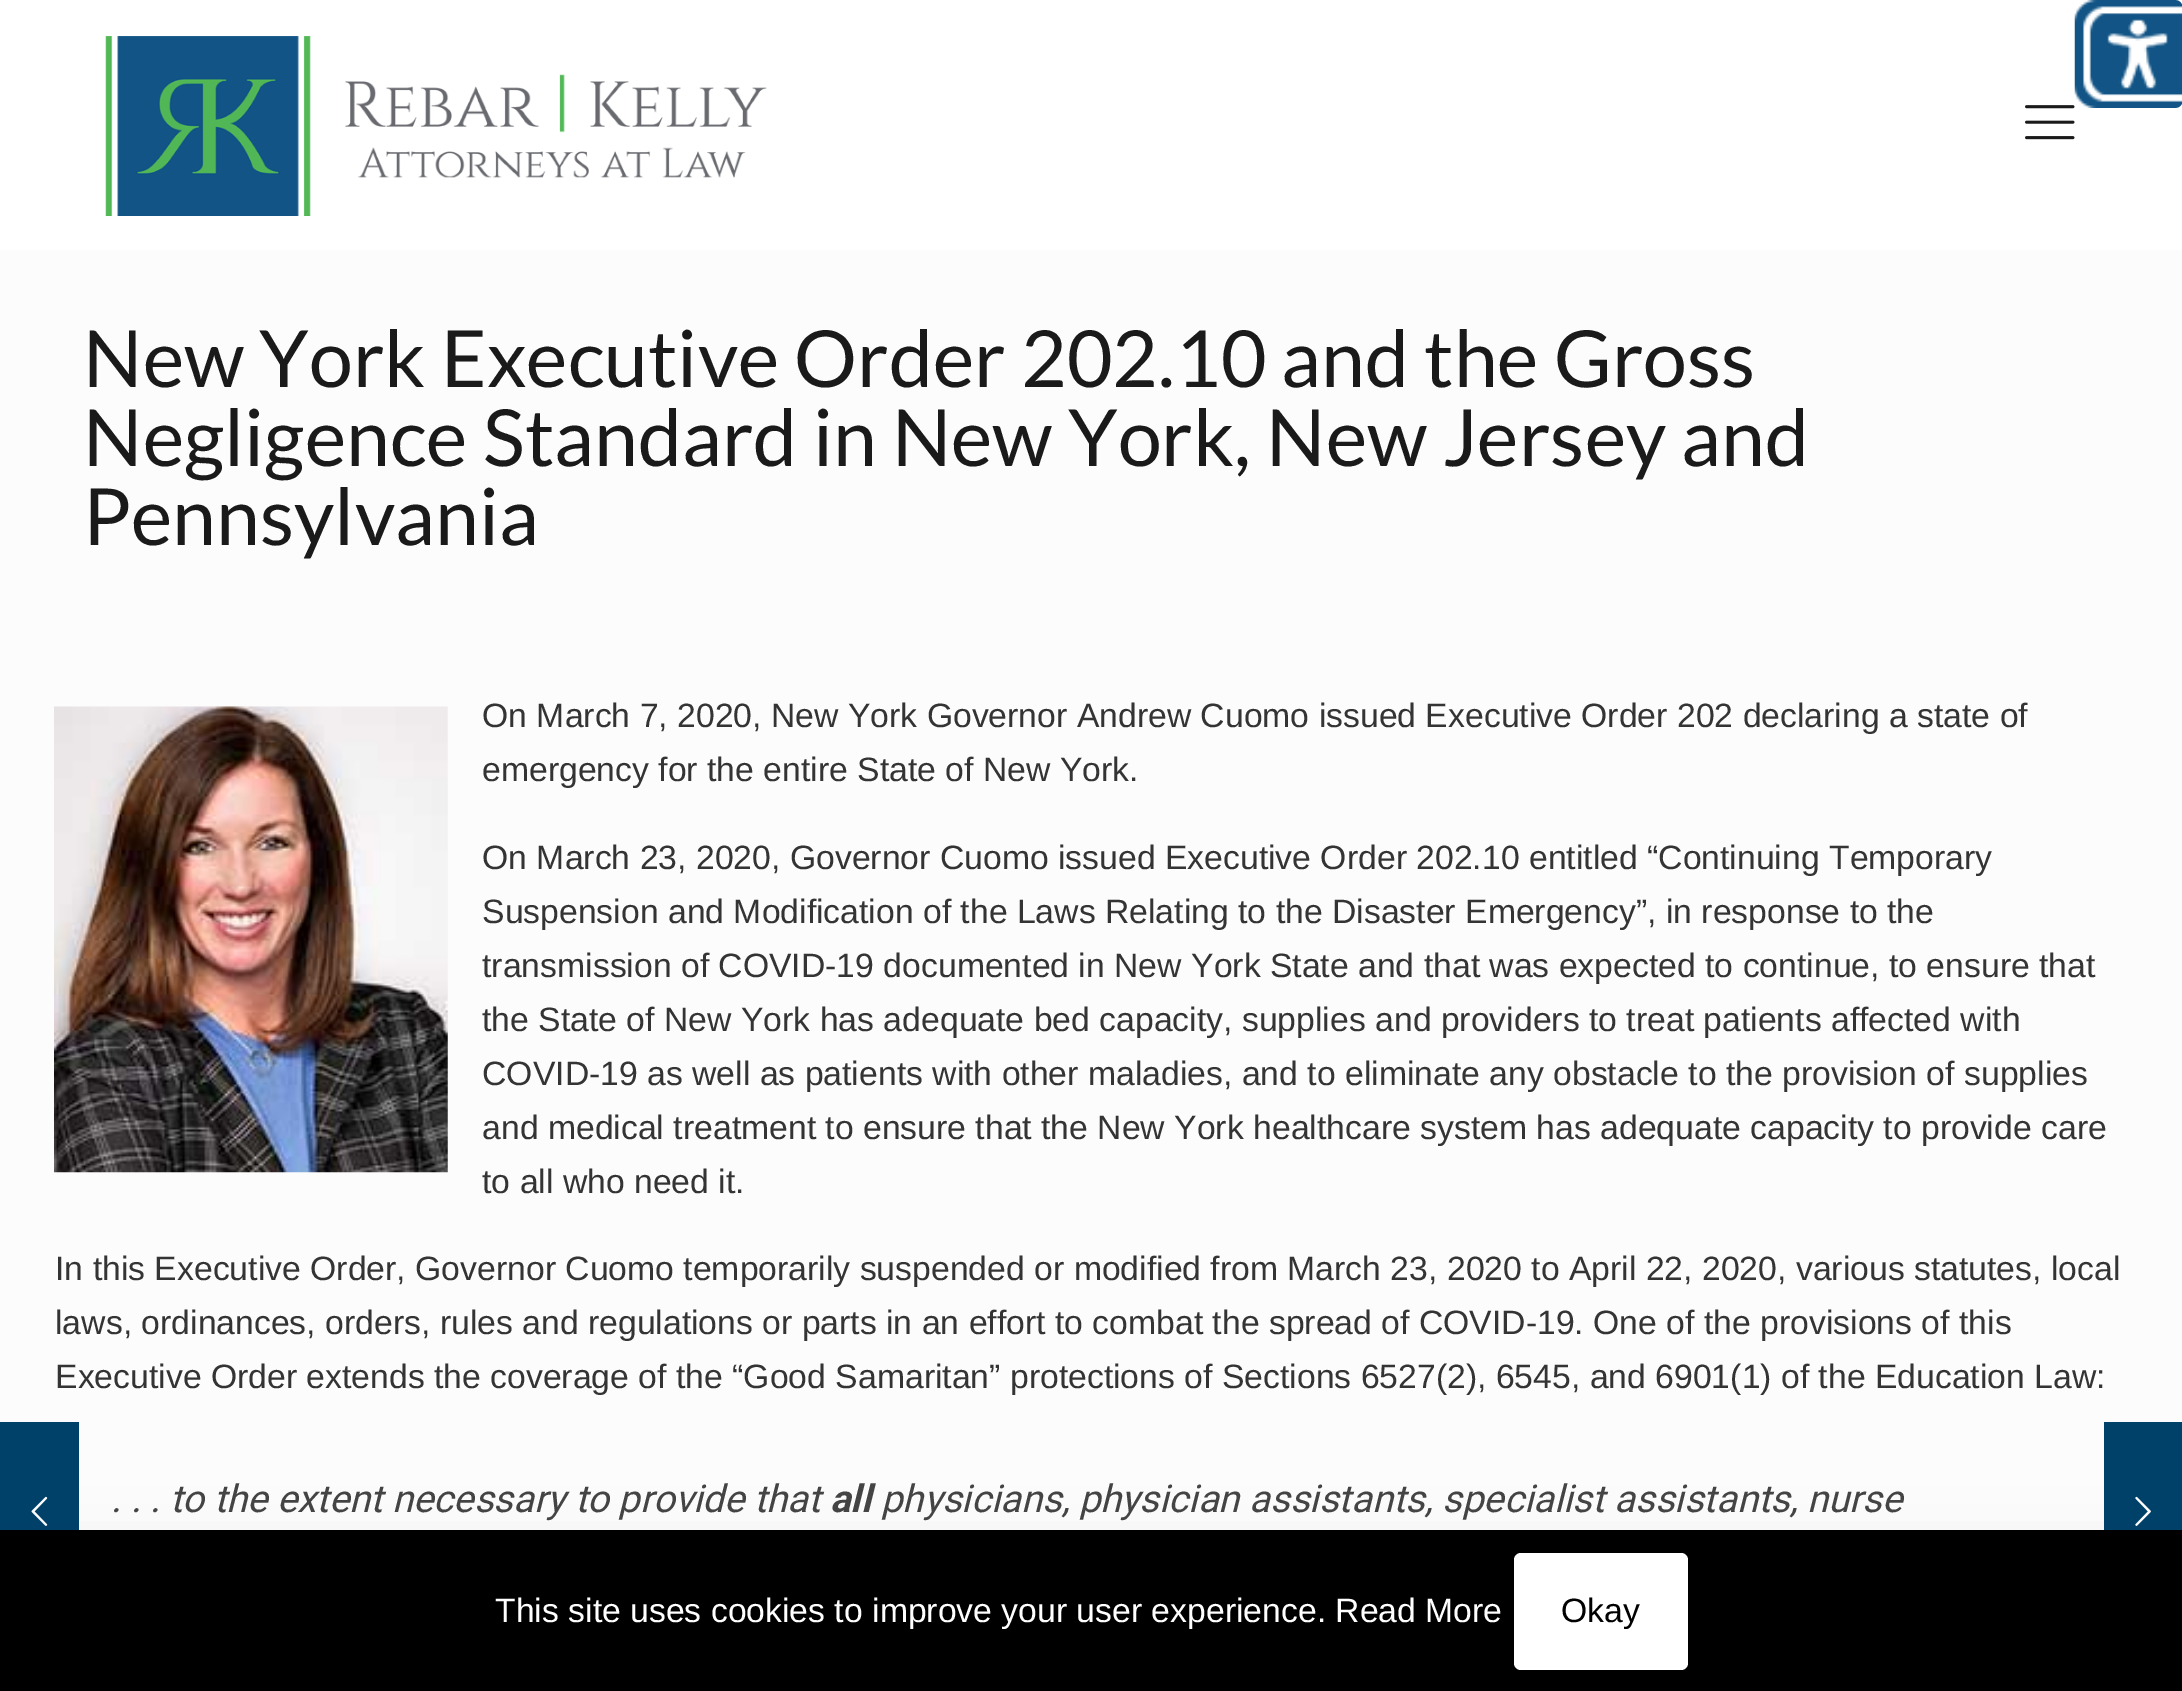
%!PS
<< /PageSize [2182 1691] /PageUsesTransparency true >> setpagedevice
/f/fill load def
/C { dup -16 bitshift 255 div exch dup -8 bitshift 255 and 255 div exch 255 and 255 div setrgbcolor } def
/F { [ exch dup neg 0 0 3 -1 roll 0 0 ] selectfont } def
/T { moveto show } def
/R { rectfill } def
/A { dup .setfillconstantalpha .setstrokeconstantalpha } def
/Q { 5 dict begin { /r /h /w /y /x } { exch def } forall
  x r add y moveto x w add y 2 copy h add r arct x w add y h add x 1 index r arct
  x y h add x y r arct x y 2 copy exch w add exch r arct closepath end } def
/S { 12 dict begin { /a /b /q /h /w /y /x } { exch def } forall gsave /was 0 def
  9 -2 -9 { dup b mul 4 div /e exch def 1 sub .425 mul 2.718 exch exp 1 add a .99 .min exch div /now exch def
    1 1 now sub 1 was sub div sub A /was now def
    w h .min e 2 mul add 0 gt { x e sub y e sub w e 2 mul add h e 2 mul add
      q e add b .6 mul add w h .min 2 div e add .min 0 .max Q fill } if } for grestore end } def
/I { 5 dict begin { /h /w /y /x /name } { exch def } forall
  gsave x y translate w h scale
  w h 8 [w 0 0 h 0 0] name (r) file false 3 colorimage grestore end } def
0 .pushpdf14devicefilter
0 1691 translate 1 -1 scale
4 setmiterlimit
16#FCFCFC C
0 0 2182 1691 R
16#FFFFFF C
0 0 2182 250 R
(4.rgb) 2025 105 50 35 I
(1.rgb) 2074 0 108 108 I
16#00416A C
0 1422 79 108 R
(2.rgb) 31 1496 17 30 I
(3.rgb) 105 36 662 180 I
/Lato-Regular 78.75 F
16#1A1A1A C
(New York Executive Order 202.10 and the Gross) 83 387 T
(Negligence Standard in New York, New Jersey and) 83 466 T
(Pennsylvania) 83 545 T
(5.rgb) 54 706 394 467 I
/LiberationSans-Regular 33.75 F
16#343434 C
(On March 7, 2020, New York Governor Andrew Cuomo issued Executive Order 202 declaring a state of) 482 727 T
(emergency for the entire State of New York.) 482 781 T
(On March 23, 2020, Governor Cuomo issued Executive Order 202.10 entitled “Continuing Temporary) 482 869 T
(Suspension and Modification of the Laws Relating to the Disaster Emergency”, in response to the) 482 923 T
(transmission of COVID-19 documented in New York State and that was expected to continue, to ensure that) 482 977 T
(the State of New York has adequate bed capacity, supplies and providers to treat patients affected with) 482 1031 T
(COVID-19 as well as patients with other maladies, and to eliminate any obstacle to the provision of supplies) 482 1085 T
(and medical treatment to ensure that the New York healthcare system has adequate capacity to provide care) 482 1139 T
(to all who need it.) 482 1193 T
(In this Executive Order, Governor Cuomo temporarily suspended or modified from March 23, 2020 to April 22, 2020, various statutes, local) 55 1280 T
(laws, ordinances, orders, rules and regulations or parts in an effort to combat the spread of COVID-19. One of the provisions of this) 55 1334 T
(Executive Order extends the coverage of the “Good Samaritan” protections of Sections 6527\(2\), 6545, and 6901\(1\) of the Education Law:) 55 1388 T
/Roboto-Italic 38.25 F
16#444444 C
(. . . to the extent necessary to provide that) 111 1512 T
/Roboto-BoldItalic 38.25 F
(all) 830 1512 T
/Roboto-Italic 38.25 F
(physicians, physician assistants, specialist assistants, nurse) 881 1512 T
16#00416A C
2104 1422 78 108 R
(6.rgb) 2135 1496 16 30 I
16#010727 C
0 1564 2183 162 0 34 .13 S
16#000000 C
0 1530 2182 161 R
/LiberationSans-Regular 33.75 F
16#FFFFFF C
(This site uses cookies to improve your user experience. Read More) 495 1622 T
1514 1553 174 117 7 Q f
16#000000 C
(Okay) 1561 1622 T
.poppdf14devicefilter showpage
